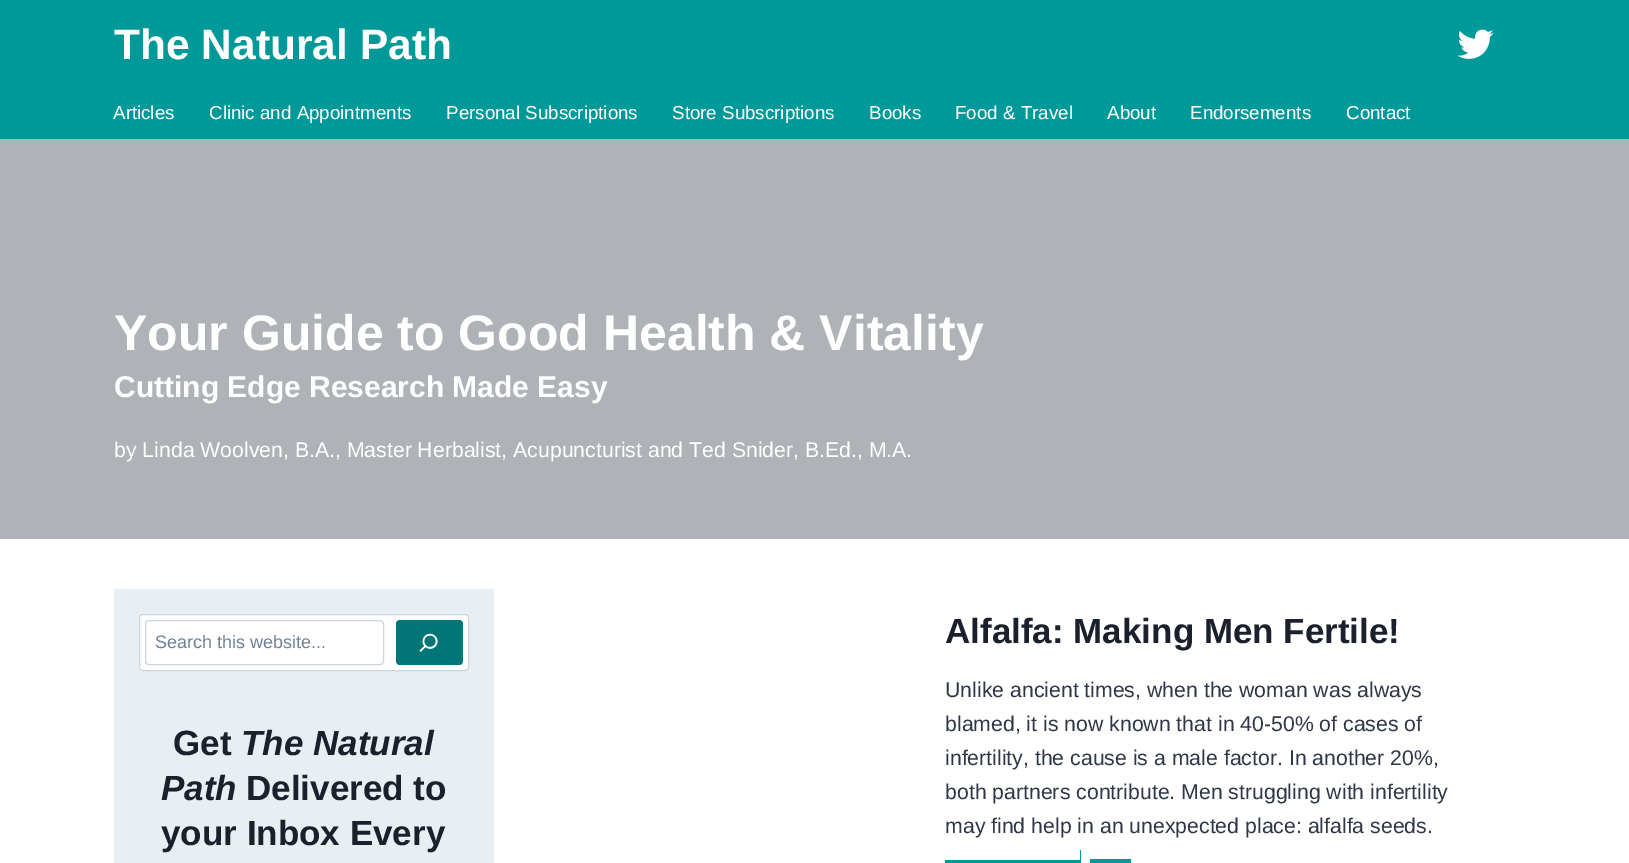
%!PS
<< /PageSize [1629 863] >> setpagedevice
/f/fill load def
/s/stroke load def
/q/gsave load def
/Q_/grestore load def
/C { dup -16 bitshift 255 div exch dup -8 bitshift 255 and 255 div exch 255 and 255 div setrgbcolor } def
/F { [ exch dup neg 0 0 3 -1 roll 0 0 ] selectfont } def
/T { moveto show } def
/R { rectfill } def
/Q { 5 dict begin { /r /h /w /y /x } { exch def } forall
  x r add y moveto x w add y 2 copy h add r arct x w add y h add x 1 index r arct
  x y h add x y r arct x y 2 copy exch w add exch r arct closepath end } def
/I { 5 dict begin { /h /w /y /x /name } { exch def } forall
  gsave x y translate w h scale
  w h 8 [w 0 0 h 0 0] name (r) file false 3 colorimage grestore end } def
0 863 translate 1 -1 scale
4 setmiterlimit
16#FFFFFF C
0 0 1629 863 R
16#009999 C
0 0 1629 139 R
/LiberationSans-Bold 42.5 F
16#FFFFFF C
(The Natural Path) 114 59 T
(1.rgb) 1457 29 37 30 I
/LiberationSans-Regular 18.75 F
(Articles) 113 119 T
(Clinic and Appointments) 209 119 T
(Personal Subscriptions) 446 119 T
(Store Subscriptions) 672 119 T
(Books) 869 119 T
(Food & Travel) 955 119 T
(About) 1107 119 T
(Endorsements) 1190 119 T
(Contact) 1346 119 T
16#AFB2B6 C
0 139 1629 400 R
/LiberationSans-Bold 50 F
16#FFFFFF C
(Your Guide to Good Health & Vitality) 114 350 T
/LiberationSans-Bold 30 F
(Cutting Edge Research Made Easy) 114 397 T
/LiberationSans-Regular 21.25 F
(by Linda Woolven, B.A., Master Herbalist, Acupuncturist and Ted Snider, B.Ed., M.A.) 114 457 T
16#E9EEF3 C
114 589 380 274 R
16#FFFFFF C
139.5 614.5 329 56 3.5 Q q f Q_
16#CBD5E0 C
s
145.5 620.5 238 44 3.5 Q s
/LiberationSans-Regular 18 F
16#718096 C
(Search this website...) 155 648 T
16#007676 C
396 620 67 45 4 Q f
(2.rgb) 419 633 19 19 I
/LiberationSans-Bold 35 F
16#1A202C C
(Get) 173 755 T
/LiberationSans-BoldItalic 35 F
(The Natural) 241 755 T
(Path) 161 800 T
/LiberationSans-Bold 35 F
(Delivered to) 246 800 T
(your Inbox Every) 161 845 T
(Alfalfa: Making Men Fertile!) 945 643 T
/LiberationSans-Regular 21.25 F
16#2D3748 C
(Unlike ancient times, when the woman was always) 945 697 T
(blamed, it is now known that in 40-50% of cases of) 945 731 T
(infertility, the cause is a male factor. In another 20%,) 945 765 T
(both partners contribute. Men struggling with infertility) 945 799 T
(may find help in an unexpected place: alfalfa seeds.) 945 833 T
16#009999 C
945 860 136 3 R
1080 850 1 13 R
1090 859 41 4 R
showpage
